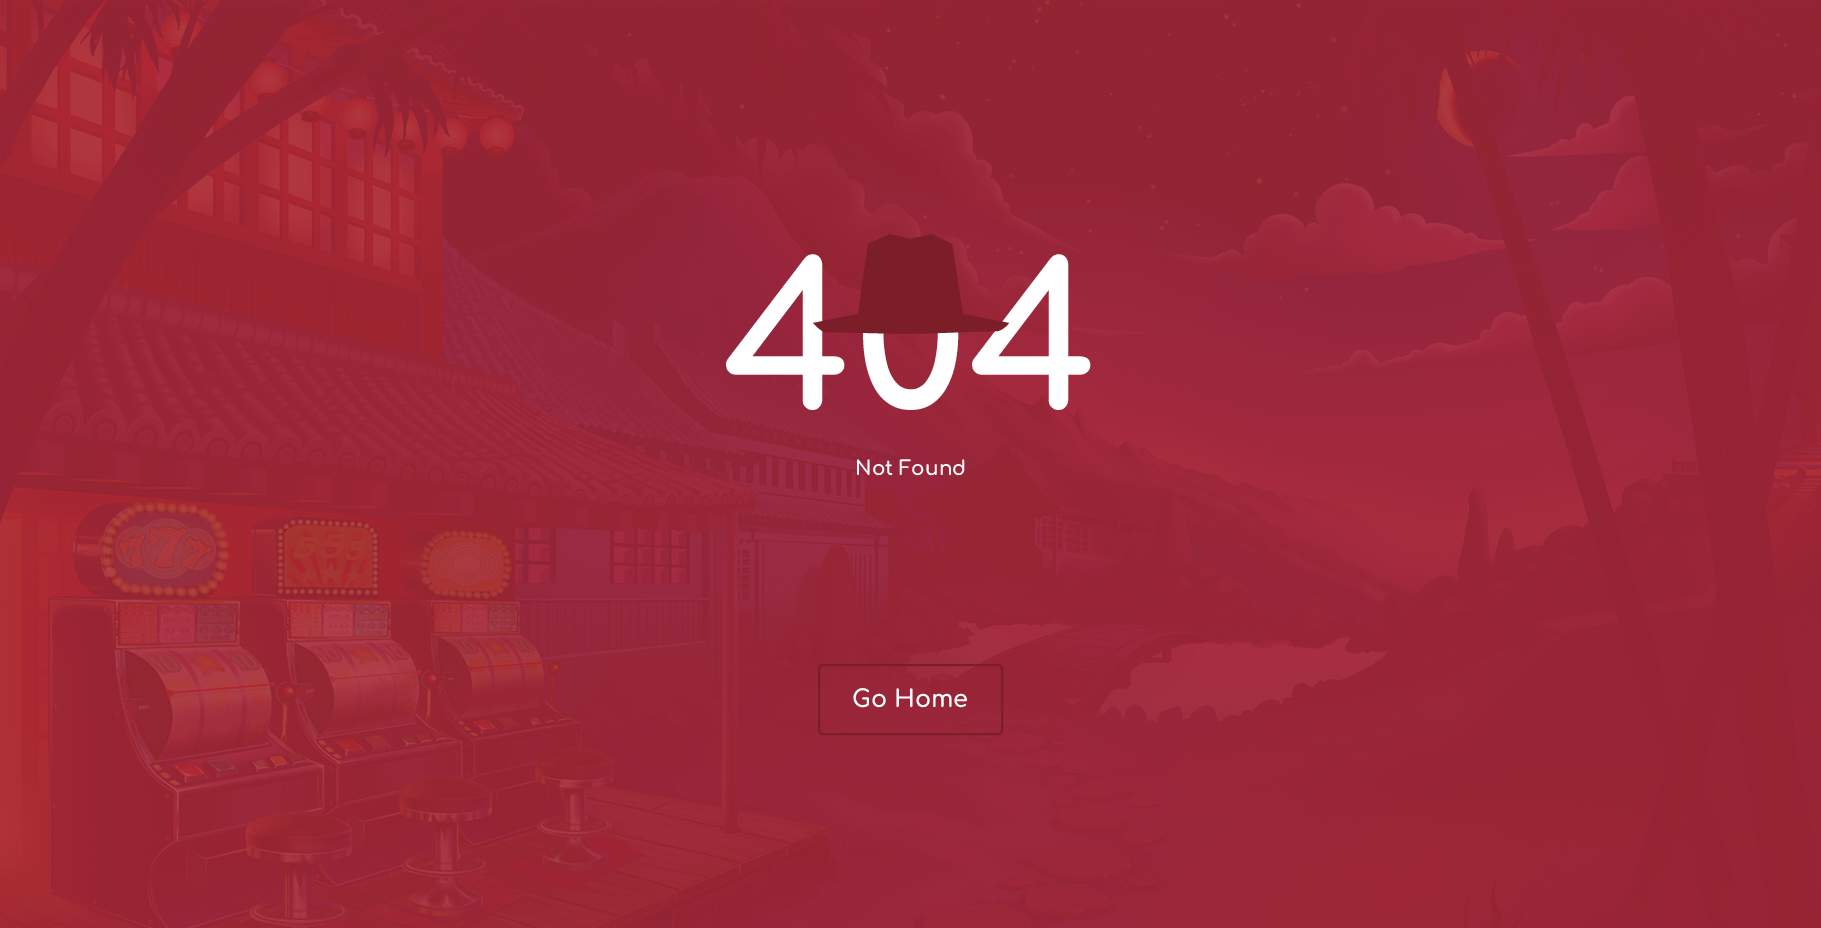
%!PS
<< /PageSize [1821 928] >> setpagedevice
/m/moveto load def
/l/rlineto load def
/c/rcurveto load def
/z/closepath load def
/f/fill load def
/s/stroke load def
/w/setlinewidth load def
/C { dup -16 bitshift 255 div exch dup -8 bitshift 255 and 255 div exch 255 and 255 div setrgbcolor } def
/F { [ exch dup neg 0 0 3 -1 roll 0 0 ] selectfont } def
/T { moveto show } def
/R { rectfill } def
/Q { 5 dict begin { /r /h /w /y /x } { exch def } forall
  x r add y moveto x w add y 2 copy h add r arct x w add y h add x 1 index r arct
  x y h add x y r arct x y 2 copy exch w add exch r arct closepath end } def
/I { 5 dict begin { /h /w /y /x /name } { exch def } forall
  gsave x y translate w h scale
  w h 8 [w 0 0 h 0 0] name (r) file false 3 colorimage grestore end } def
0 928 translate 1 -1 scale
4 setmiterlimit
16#FFFFFF C
0 0 1821 928 R
(1.rgb) 0 0 1821 928 I
/Comfortaa-Bold 200 F
(404) 722 410 T
16#7C1E27 C
998 331 m -88 3 l -86 -2 l -4 -2 -8 -6 -11 -9 c 45 -9 l 10 -70 l 22 -10 l 20 5 l 22 -5 l 20 10 l 11 70 l 46 9 l -3 4 -7 7 -11 8 c z f
/Comfortaa-Bold 20 F
16#FFFFFF C
(Not Found) 855 475 T
16#7C1E27 C
2 w
819 665 183 69 4 Q s
/Comfortaa-Bold 24 F
16#FFFFFF C
(Go Home) 852 707 T
showpage
